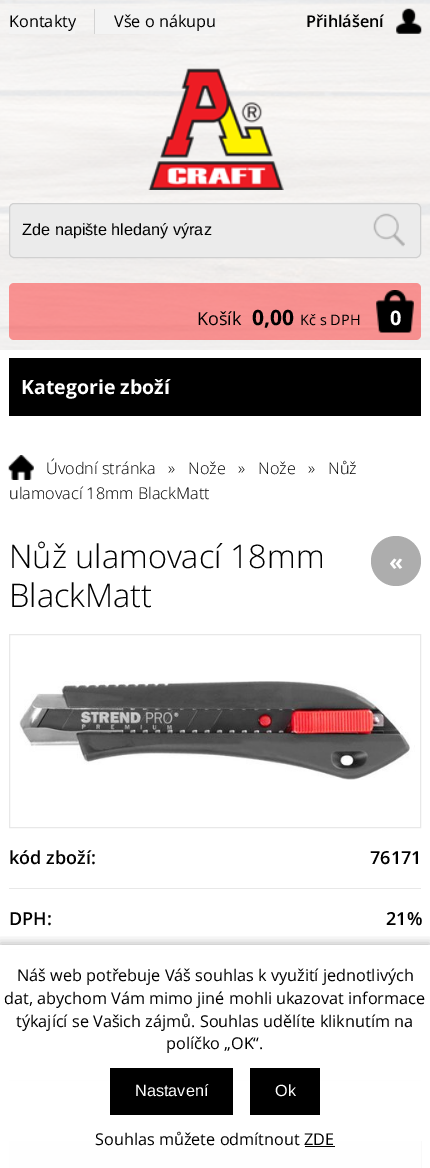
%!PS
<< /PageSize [430 1168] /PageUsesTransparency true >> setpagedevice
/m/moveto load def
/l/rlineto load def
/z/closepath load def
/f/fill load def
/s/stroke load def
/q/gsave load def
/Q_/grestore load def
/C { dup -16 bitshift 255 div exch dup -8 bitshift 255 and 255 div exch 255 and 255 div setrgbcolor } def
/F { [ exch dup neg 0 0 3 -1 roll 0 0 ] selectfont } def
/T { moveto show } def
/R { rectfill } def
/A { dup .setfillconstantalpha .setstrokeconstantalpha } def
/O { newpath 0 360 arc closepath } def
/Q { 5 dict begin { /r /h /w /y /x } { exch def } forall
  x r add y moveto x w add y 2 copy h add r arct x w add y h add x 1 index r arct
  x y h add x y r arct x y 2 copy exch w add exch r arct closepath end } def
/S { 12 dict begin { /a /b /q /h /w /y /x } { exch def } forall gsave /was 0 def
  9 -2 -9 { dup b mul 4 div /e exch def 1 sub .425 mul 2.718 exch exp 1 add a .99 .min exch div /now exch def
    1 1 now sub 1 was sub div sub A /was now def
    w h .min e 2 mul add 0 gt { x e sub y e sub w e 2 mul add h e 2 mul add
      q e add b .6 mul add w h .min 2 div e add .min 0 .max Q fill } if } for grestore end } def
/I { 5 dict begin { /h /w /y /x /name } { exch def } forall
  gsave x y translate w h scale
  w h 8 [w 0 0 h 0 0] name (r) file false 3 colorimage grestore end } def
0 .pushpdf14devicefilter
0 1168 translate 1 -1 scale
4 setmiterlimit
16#FFFFFF C
0 0 430 1168 R
(1.rgb) 0 0 430 350 I
0.9 A
0 0 430 56 R
1 A
16#F3F3F3 C
9 9 66 25 R
/OpenSans-Regular 16.25 F
16#000000 C
(Kontakty) 9 27 T
16#F3F3F3 C
95 9 121 25 R
16#D3D3D3 C
94 9 1 25 R
16#000000 C
(Vše o nákupu) 114 27 T
(2.rgb) 396 8 26 26 I
/OpenSans-SemiBold 16.25 F
(Přihlášení) 306 27 T
-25 325 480 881 0 12.5 .2 S
0.9 A
16#FFFFFF C
0 56 430 294 R
1 A
(3.rgb) 148 68 136 122 I
16#EBEBEB C
9.5 203.5 411 54 4.5 Q q f Q_
16#D0D0D0 C
s
/LiberationSans-Regular 16.25 F
16#000000 C
(Zde napište hledaný výraz) 22 235 T
(4.rgb) 373 213 32 34 I
0.4 A
16#FF0000 C
9 283 412 57 5 Q f
/OpenSans-Regular 18 F
1 A
16#000000 C
(Košík) 197 325 T
/OpenSans-Bold 21 F
(0,00) 252 325 T
/OpenSans-Regular 14.5 F
(Kč s DPH) 300 325 T
(5.rgb) 376 290 38 43 I
/OpenSans-Bold 20 F
16#FFFFFF C
(0) 390 325 T
0 350 430 818 R
16#000000 C
9 358 412 58 R
/OpenSans-Bold 19.5 F
16#FFFFFF C
(Kategorie zboží) 21 394 T
(6.rgb) 8 455 26 25 I
/OpenSans-Light 16.25 F
16#000000 C
(Úvodní stránka) 46 474 T
(») 168 474 T
(Nože) 188 474 T
(») 238 474 T
(Nože) 258 474 T
(») 308 474 T
(Nůž) 328 474 T
(ulamovací 18mm BlackMatt) 9 499 T
/OpenSans-Light 32.5 F
(Nůž ulamovací 18mm) 9 568 T
(BlackMatt) 9 607 T
16#E8E8E8 C
9.5 634.5 411 193 rectstroke
(7.rgb) 19 681 396 99 I
9 888 412 1 R
/OpenSans-SemiBold 18 F
16#000000 C
(kód zboží:) 9 864 T
(76171) 370 864 T
16#E8E8E8 C
9 949 412 1 R
16#000000 C
(DPH:) 9 925 T
(21%) 386 925 T
16#E8E8E8 C
9 1011 412 1 R
9 1080 101 1 R
233 1080 188 1 R
16#F4F4F4 C
9.5 1141.5 m 411 0 l 0 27 l -411 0 l z q f Q_
16#E8E8E8 C
s
16#ADADAD C
396 561 25 O f
/OpenSans-Bold 23 F
16#FFFFFF C
(«) 389 570 T
q
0 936 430 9 rectclip
16#000000 C
0 943 430 223 0 5 .25 S
Q_
0.94 A
9 949 412 219 R
/OpenSans-Regular 16.25 F
1 A
16#000000 C
(Náš web potřebuje Váš souhlas k využití jednotlivých) 17 981 T
(dat, abychom Vám mimo jiné mohli ukazovat informace) 4 1004 T
(týkající se Vašich zájmů. Souhlas udělíte kliknutím na) 16 1027 T
(políčko „OK“.) 166 1049 T
110 1068 123 47 R
/LiberationSans-Regular 16.25 F
16#FFFFFF C
(Nastavení) 135 1096 T
16#000000 C
250 1068 70 47 R
16#FFFFFF C
(Ok) 275 1096 T
/OpenSans-Regular 16.25 F
16#000000 C
(Souhlas můžete odmítnout ZDE) 95 1145 T
305 1146 30 1 R
.poppdf14devicefilter showpage
